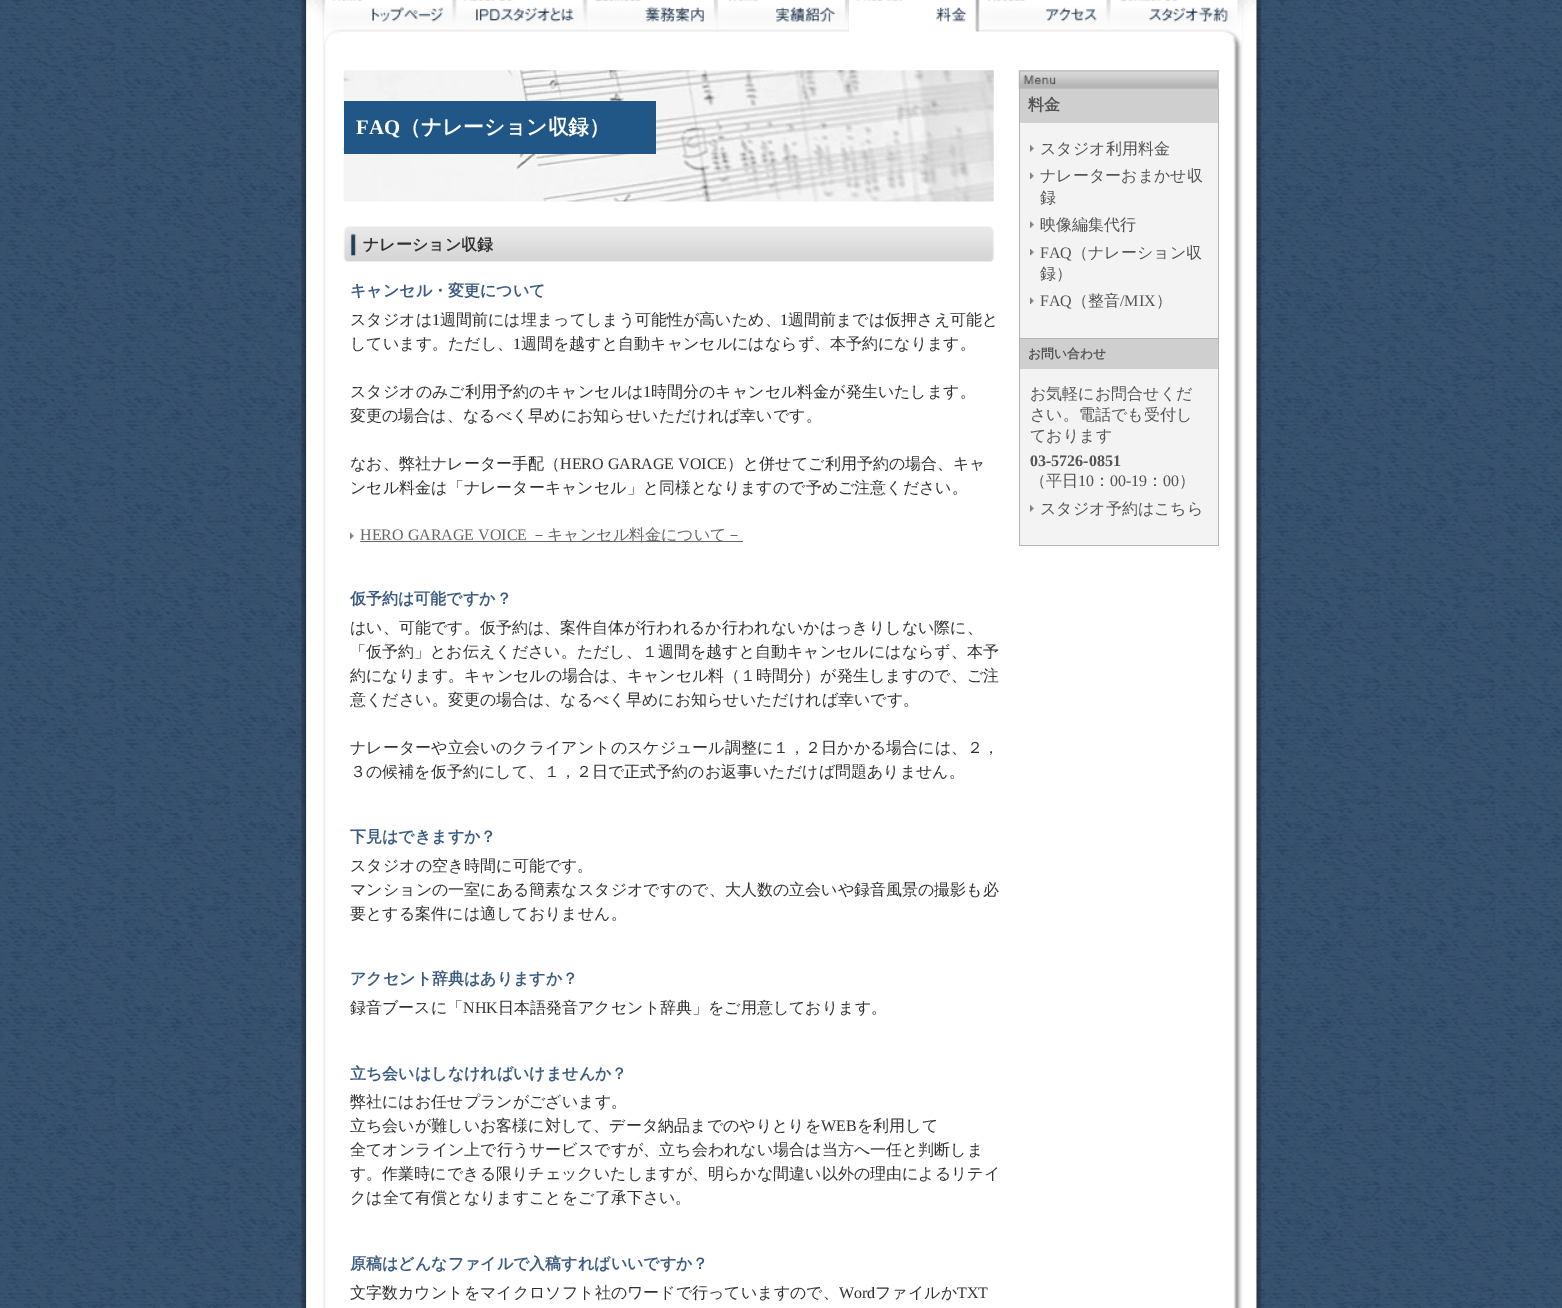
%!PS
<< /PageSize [1562 1308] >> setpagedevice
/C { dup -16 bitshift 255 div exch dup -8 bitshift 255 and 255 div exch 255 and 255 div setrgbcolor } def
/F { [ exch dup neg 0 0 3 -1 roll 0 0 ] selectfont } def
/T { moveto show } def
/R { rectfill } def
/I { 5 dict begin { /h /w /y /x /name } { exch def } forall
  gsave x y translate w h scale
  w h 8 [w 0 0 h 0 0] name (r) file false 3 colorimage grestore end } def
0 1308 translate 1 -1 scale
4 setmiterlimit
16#FFFFFF C
0 0 1562 1308 R
(1.rgb) 0 0 1562 1308 I
(2.rgb) 301 0 961 1308 I
(10.rgb) 306 45 951 1263 I
(3.rgb) 306 0 951 46 I
(4.rgb) 324 0 131 45 I
(5.rgb) 455 0 132 32 I
(6.rgb) 586 0 132 32 I
(7.rgb) 717 0 132 32 I
(8.rgb) 980 0 132 32 I
(9.rgb) 1111 0 131 46 I
(11.rgb) 343 70 651 132 I
16#205786 C
344 101 312 53 R
/LiberationSerif-Bold 20.75 F
16#FFFFFF C
(FAQ) 356 134 T
/WenQuanYiZenHei-Bold 20.75 F
(（ナレーション収録）) 400 134 T
(12.rgb) 343 226 651 36 I
/WenQuanYiZenHei-Bold 16 F
16#323232 C
(ナレーション収録) 363 250 T
16#3B5B83 C
(キャンセル・変更について) 350 296 T
/WenQuanYiZenHei-Medium 16 F
16#323232 C
(スタジオは) 350 325 T
/LiberationSerif-Regular 16 F
(1) 432 325 T
/WenQuanYiZenHei-Medium 16 F
(週間前には埋まってしまう可能性が高いため、) 440 325 T
/LiberationSerif-Regular 16 F
(1) 780 325 T
/WenQuanYiZenHei-Medium 16 F
(週間前までは仮押さえ可能と) 788 325 T
(しています。ただし、) 350 349 T
/LiberationSerif-Regular 16 F
(1) 513 349 T
/WenQuanYiZenHei-Medium 16 F
(週間を越すと自動キャンセルにはならず、本予約になります。) 521 349 T
(スタジオのみご利用予約のキャンセルは) 350 397 T
/LiberationSerif-Regular 16 F
(1) 643 397 T
/WenQuanYiZenHei-Medium 16 F
(時間分のキャンセル料金が発生いたします。) 651 397 T
(変更の場合は、なるべく早めにお知らせいただければ幸いです。) 350 421 T
(なお、弊社ナレーター手配（) 350 469 T
/LiberationSerif-Regular 16 F
(HERO GARAGE VOICE) 560 469 T
/WenQuanYiZenHei-Medium 16 F
(）と併せてご利用予約の場合、キャ) 727 469 T
(ンセル料金は「ナレーターキャンセル」と同様となりますので予めご注意ください。) 350 493 T
(13.rgb) 350 532 4 7 I
/LiberationSerif-Regular 16 F
16#666666 C
(HERO GARAGE VOICE) 360 540 T
360 541 383 1 R
/WenQuanYiZenHei-Medium 16 F
(－キャンセル料金について－) 531 540 T
/WenQuanYiZenHei-Bold 16 F
16#3B5B83 C
(仮予約は可能ですか？) 350 604 T
/WenQuanYiZenHei-Medium 16 F
16#323232 C
(はい、可能です。仮予約は、案件自体が行われるか行われないかはっきりしない際に、) 350 633 T
(「仮予約」とお伝えください。ただし、１週間を越すと自動キャンセルにはならず、本予) 350 657 T
(約になります。キャンセルの場合は、キャンセル料（１時間分）が発生しますので、ご注) 350 681 T
(意ください。変更の場合は、なるべく早めにお知らせいただければ幸いです。) 350 705 T
(ナレーターや立会いのクライアントのスケジュール調整に１，２日かかる場合には、２，) 350 753 T
(３の候補を仮予約にして、１，２日で正式予約のお返事いただけば問題ありません。) 350 777 T
/WenQuanYiZenHei-Bold 16 F
16#3B5B83 C
(下見はできますか？) 350 842 T
/WenQuanYiZenHei-Medium 16 F
16#323232 C
(スタジオの空き時間に可能です。) 350 871 T
(マンションの一室にある簡素なスタジオですので、大人数の立会いや録音風景の撮影も必) 350 895 T
(要とする案件には適しておりません。) 350 919 T
/WenQuanYiZenHei-Bold 16 F
16#3B5B83 C
(アクセント辞典はありますか？) 350 984 T
/WenQuanYiZenHei-Medium 16 F
16#323232 C
(録音ブースに「) 350 1013 T
/LiberationSerif-Regular 16 F
(NHK) 463 1013 T
/WenQuanYiZenHei-Medium 16 F
(日本語発音アクセント辞典」をご用意しております。) 498 1013 T
/WenQuanYiZenHei-Bold 16 F
16#3B5B83 C
(立ち会いはしなければいけませんか？) 350 1079 T
/WenQuanYiZenHei-Medium 16 F
16#323232 C
(弊社にはお任せプランがございます。) 350 1107 T
(立ち会いが難しいお客様に対して、データ納品までのやりとりを) 350 1131 T
/LiberationSerif-Regular 16 F
(WEB) 821 1131 T
/WenQuanYiZenHei-Medium 16 F
(を利用して) 857 1131 T
(全てオンライン上で行うサービスですが、立ち会われない場合は当方へ一任と判断しま) 350 1155 T
(す。作業時にできる限りチェックいたしますが、明らかな間違い以外の理由によるリテイ) 350 1179 T
(クは全て有償となりますことをご了承下さい。) 350 1203 T
/WenQuanYiZenHei-Bold 16 F
16#3B5B83 C
(原稿はどんなファイルで入稿すればいいですか？) 350 1269 T
/WenQuanYiZenHei-Medium 16 F
16#323232 C
(文字数カウントをマイクロソフト社のワードで行っていますので、) 350 1298 T
/LiberationSerif-Regular 16 F
(Word) 839 1298 T
/WenQuanYiZenHei-Medium 16 F
(ファイルか) 875 1298 T
/LiberationSerif-Regular 16 F
(TXT) 957 1298 T
(14.rgb) 1018 70 201 19 I
16#CFCFCF C
1020 89 198 34 R
16#B4B4B4 C
1218 89 1 457 R
1019 89 1 34 R
/WenQuanYiZenHei-Bold 16 F
16#555555 C
(料金) 1028 110 T
16#F3F3F3 C
1020 123 198 215 R
16#B4B4B4 C
1019 338 200 1 R
1019 123 1 246 R
(15.rgb) 1030 145 4 7 I
/WenQuanYiZenHei-Medium 16 F
16#555555 C
(スタジオ利用料金) 1040 154 T
(16.rgb) 1030 172 4 7 I
(ナレーターおまかせ収) 1040 181 T
(録) 1040 203 T
(17.rgb) 1030 221 4 7 I
(映像編集代行) 1040 230 T
(18.rgb) 1030 249 4 7 I
/LiberationSerif-Regular 16 F
(FAQ) 1040 258 T
/WenQuanYiZenHei-Medium 16 F
(（ナレーション収) 1072 258 T
(録）) 1040 279 T
(16.rgb) 1030 297 4 7 I
/LiberationSerif-Regular 16 F
(FAQ) 1040 306 T
/WenQuanYiZenHei-Medium 16 F
(（整音) 1072 306 T
/LiberationSerif-Regular 16 F
(/MIX) 1120 306 T
/WenQuanYiZenHei-Medium 16 F
(）) 1156 306 T
16#CFCFCF C
1020 339 198 30 R
/WenQuanYiZenHei-Bold 12.75 F
16#555555 C
(お問い合わせ) 1028 358 T
16#F3F3F3 C
1020 369 198 176 R
16#B4B4B4 C
1019 545 200 1 R
1019 369 1 177 R
/WenQuanYiZenHei-Medium 16 F
16#555555 C
(お気軽にお問合せくだ) 1030 399 T
(さい。電話でも受付し) 1030 420 T
(ております) 1030 441 T
/LiberationSerif-Bold 16 F
(03-5726-0851) 1030 466 T
/WenQuanYiZenHei-Medium 16 F
(（平日) 1030 486 T
/LiberationSerif-Regular 16 F
(10) 1078 486 T
/WenQuanYiZenHei-Medium 16 F
(：) 1094 486 T
/LiberationSerif-Regular 16 F
(00-19) 1110 486 T
/WenQuanYiZenHei-Medium 16 F
(：) 1147 486 T
/LiberationSerif-Regular 16 F
(00) 1163 486 T
/WenQuanYiZenHei-Medium 16 F
(）) 1179 486 T
(15.rgb) 1030 505 4 7 I
(スタジオ予約はこちら) 1040 514 T
showpage
